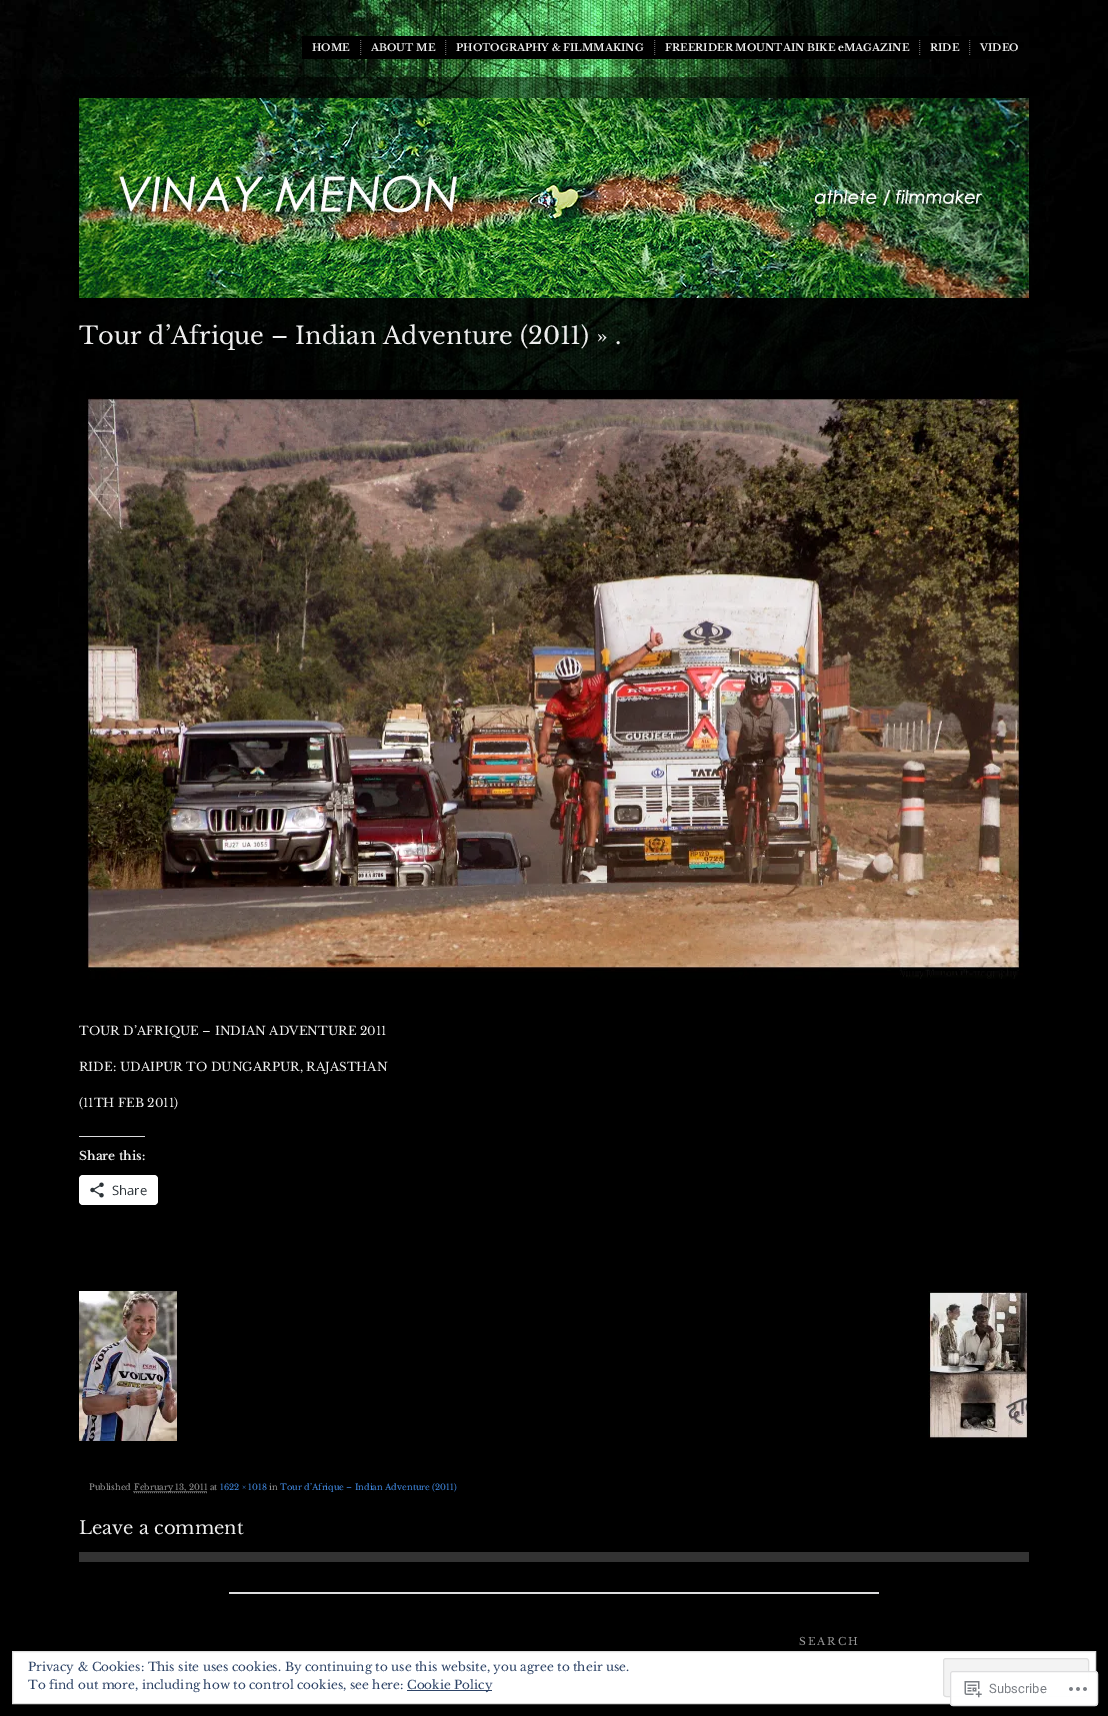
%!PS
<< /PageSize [1108 1716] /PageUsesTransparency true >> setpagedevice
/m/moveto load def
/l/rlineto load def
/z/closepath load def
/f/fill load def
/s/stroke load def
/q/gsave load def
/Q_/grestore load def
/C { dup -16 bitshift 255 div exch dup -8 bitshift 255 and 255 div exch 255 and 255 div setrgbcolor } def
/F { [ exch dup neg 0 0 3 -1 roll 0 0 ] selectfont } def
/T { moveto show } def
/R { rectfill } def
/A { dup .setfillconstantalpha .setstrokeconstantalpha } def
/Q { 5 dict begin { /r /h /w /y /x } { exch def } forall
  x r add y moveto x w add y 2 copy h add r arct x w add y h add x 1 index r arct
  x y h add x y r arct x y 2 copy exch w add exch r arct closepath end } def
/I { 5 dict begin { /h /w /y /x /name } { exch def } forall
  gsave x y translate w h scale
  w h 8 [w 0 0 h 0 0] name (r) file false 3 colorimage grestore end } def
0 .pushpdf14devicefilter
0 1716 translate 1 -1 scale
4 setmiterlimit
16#000000 C
0 0 1108 1716 R
(1.rgb) 0 0 1108 693 I
302 36 706 23 R
16#666666 C
[1 1] 0 setdash
360.5 40 m 0 15 l s
/LibreBaskerville-Bold 10 F
16#EEEEEE C
(HOME) 312 51 T
16#666666 C
445.5 40 m 0 15 l s
16#EEEEEE C
(ABOUT ME) 371 51 T
16#666666 C
654.5 40 m 0 15 l s
16#EEEEEE C
(PHOTOGRAPHY & FILMMAKING) 456 51 T
16#666666 C
919.5 40 m 0 15 l s
16#EEEEEE C
(FREERIDER MOUNTAIN BIKE eMAGAZINE) 665 51 T
16#666666 C
969.5 40 m 0 15 l s
16#EEEEEE C
(RIDE) 930 51 T
(VIDEO) 980 51 T
0.5 A
16#000000 C
60 77 983 616 R
1 A
(2.rgb) 79 98 950 200 I
/LibreBaskerville-Regular 24 F
16#EEEEEE C
(Tour d’Afrique – Indian Adventure \(2011\) » .) 79 344 T
(3.rgb) 86 390 937 589 I
/LibreBaskerville-Regular 12 F
(TOUR D’AFRIQUE – INDIAN ADVENTURE 2011) 79 1035 T
(RIDE: UDAIPUR TO DUNGARPUR, RAJASTHAN) 79 1071 T
(\(11TH FEB 2011\)) 79 1107 T
16#DCDCDE C
79 1136 66 1 R
/LibreBaskerville-Bold 12 F
16#EEEEEE C
(Share this:) 79 1160 T
16#FFFFFF C
79 1175 79 30 4 Q f
(4.rgb) 90 1182 14 16 I
/OpenSans-Regular 13 F
16#2C3338 C
(Share) 112 1195 T
(5.rgb) 79 1291 98 150 I
(6.rgb) 928 1291 100 148 I
/LibreBaskerville-Regular 8.3 F
16#999999 C
(Published) 89 1490 T
16#666666 C
134 1492.5 m 73 0 l s
16#999999 C
133.5 1491.5 m 74 0 l s
(February 13, 2011 at) 134 1490 T
16#428CE7 C
(1622 × 1018) 220 1490 T
16#999999 C
(in) 269 1490 T
16#428CE7 C
(Tour d’Afrique – Indian Adventure \(2011\)) 280 1490 T
/LibreBaskerville-Regular 18 F
16#EEEEEE C
(Leave a comment) 79 1534 T
16#333333 C
79 1552 950 10 R
16#DCDCDE C
229 1592 650 2 R
/LibreBaskerville-Regular 10.5 F
16#999999 C
799 1645 m 2 0 (SEARCH) ashow
16#FFFFFF C
12.5 1651.5 m 1083 0 l 0 52 l -1083 0 l z q f Q_
16#DEDEDE C
[] 0 setdash
s
16#F3F3F3 C
943.5 1658.5 145 38 2.5 Q q f Q_
16#DEDEDE C
s
0.98 A
16#FFFFFF C
950 1671 148 35 3 Q f
16#DCDCDE C
950.5 1671.5 147 34 2.5 Q s
1 A
(7.rgb) 964 1681 18 17 I
/Roboto-Regular 13 F
16#7A7E84 C
(Subscribe) 989 1693 T
(8.rgb) 1069 1687 18 4 I
/LibreBaskerville-Regular 12 F
16#2E4467 C
(Privacy & Cookies: This site uses cookies. By continuing to use this website, you agree to their use.) 28 1671 T
(To find out more, including how to control cookies, see here:) 28 1689 T
407 1690 85 1 R
(Cookie Policy) 407 1689 T
.poppdf14devicefilter showpage
